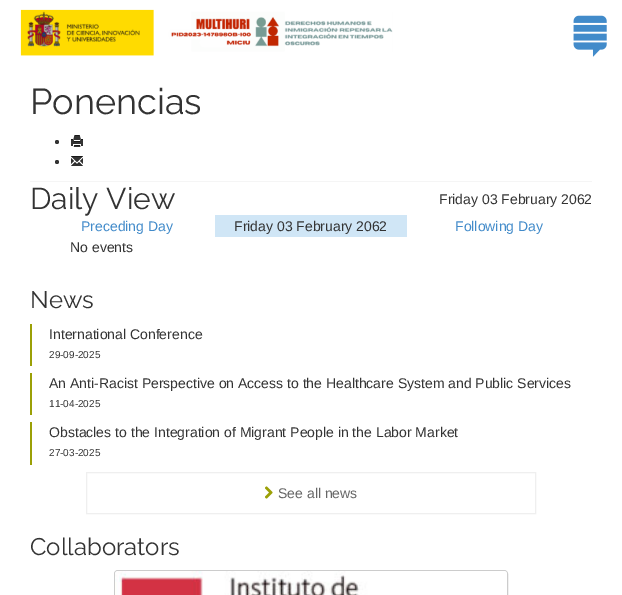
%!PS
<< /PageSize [622 595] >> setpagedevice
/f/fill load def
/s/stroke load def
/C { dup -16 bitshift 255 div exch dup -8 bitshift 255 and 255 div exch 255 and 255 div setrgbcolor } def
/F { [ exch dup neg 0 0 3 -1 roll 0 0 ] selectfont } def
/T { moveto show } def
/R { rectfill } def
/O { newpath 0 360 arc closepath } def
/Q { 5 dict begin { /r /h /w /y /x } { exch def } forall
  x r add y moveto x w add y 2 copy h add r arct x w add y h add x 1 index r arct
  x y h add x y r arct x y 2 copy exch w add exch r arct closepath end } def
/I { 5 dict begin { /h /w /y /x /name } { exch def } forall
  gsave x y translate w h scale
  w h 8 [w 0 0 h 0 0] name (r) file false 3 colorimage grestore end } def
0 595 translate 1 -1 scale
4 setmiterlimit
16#FFFFFF C
0 0 622 595 R
(1.rgb) 573 15 34 42 I
(2.rgb) 20 9 373 47 I
/Raleway-Regular 36 F
16#333333 C
(Ponencias) 30 114 T
57 142 2 O f
(3.rgb) 71 135 12 12 I
57 162 2 O f
(4.rgb) 71 156 12 10 I
16#F5F5F5 C
30 181 562 1 R
/Raleway-Regular 30 F
16#333333 C
(Daily View) 30 209 T
/LiberationSans-Regular 14 F
(Friday 03 February 2062) 439 204 T
16#428BCA C
(Preceding Day) 81 231 T
16#D0E6F6 C
215 215 192 22 R
16#333333 C
(Friday 03 February 2062) 234 231 T
16#428BCA C
(Following Day) 455 231 T
16#333333 C
(No events) 70 252 T
/Raleway-Regular 24 F
(News) 30 308 T
16#9BA006 C
30 324 2 42 R
/LiberationSans-Regular 14 F
16#333333 C
(International Conference) 49 339 T
/LiberationSans-Regular 10 F
(29-09-2025) 49 358 T
16#9BA006 C
30 373 2 42 R
/LiberationSans-Regular 14 F
16#333333 C
(An Anti-Racist Perspective on Access to the Healthcare System and Public Services) 49 388 T
/LiberationSans-Regular 10 F
(11-04-2025) 49 407 T
16#9BA006 C
30 422 2 43 R
/LiberationSans-Regular 14 F
16#333333 C
(Obstacles to the Integration of Migrant People in the Labor Market) 49 437 T
/LiberationSans-Regular 10 F
(27-03-2025) 49 456 T
16#EFEFEF C
86.5 472.5 449 41 rectstroke
(5.rgb) 265 486 8 13 I
/LiberationSans-Regular 14 F
16#666666 C
(See all news) 278 498 T
/Raleway-Regular 24 F
16#333333 C
(Collaborators) 30 555 T
16#CCCCCC C
114.5 570.5 393 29 3.5 Q s
(6.rgb) 115 571 392 24 I
showpage
